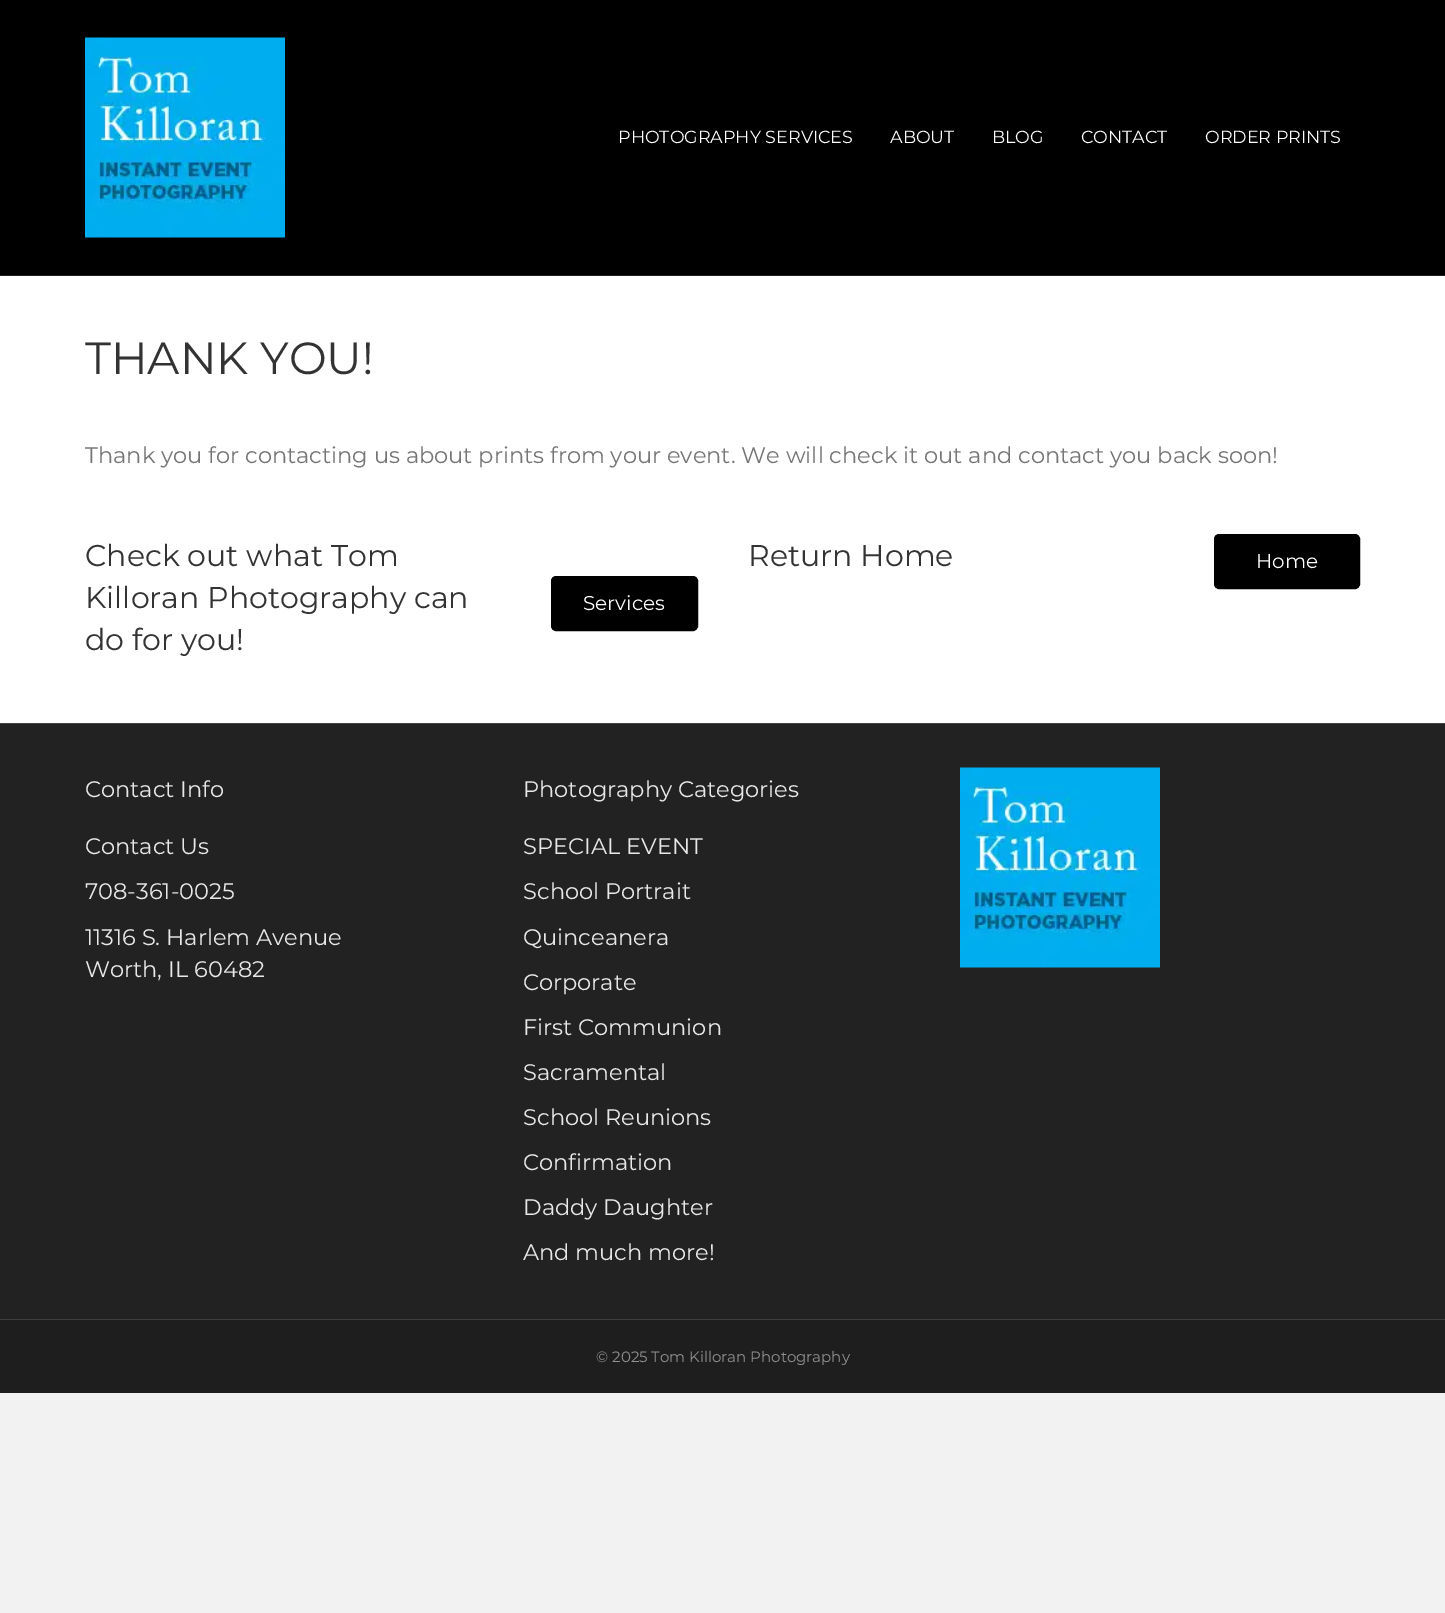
%!PS
<< /PageSize [1445 1613] >> setpagedevice
/f/fill load def
/s/stroke load def
/q/gsave load def
/Q_/grestore load def
/C { dup -16 bitshift 255 div exch dup -8 bitshift 255 and 255 div exch 255 and 255 div setrgbcolor } def
/F { [ exch dup neg 0 0 3 -1 roll 0 0 ] selectfont } def
/T { moveto show } def
/R { rectfill } def
/Q { 5 dict begin { /r /h /w /y /x } { exch def } forall
  x r add y moveto x w add y 2 copy h add r arct x w add y h add x 1 index r arct
  x y h add x y r arct x y 2 copy exch w add exch r arct closepath end } def
/I { 5 dict begin { /h /w /y /x /name } { exch def } forall
  gsave x y translate w h scale
  w h 8 [w 0 0 h 0 0] name (r) file false 3 colorimage grestore end } def
0 1613 translate 1 -1 scale
4 setmiterlimit
16#F2F2F2 C
0 0 1445 1613 R
16#000000 C
0 0 1445 275 R
16#212121 C
0 275 1445 1 R
(1.rgb) 85 37 200 201 I
/Montserrat-Regular 17.5 F
16#FFFFFF C
(PHOTOGRAPHY SERVICES) 618 143 T
(ABOUT) 890 143 T
(BLOG) 992 143 T
(CONTACT) 1081 143 T
(ORDER PRINTS) 1205 143 T
0 276 1445 447 R
/Montserrat-Regular 45 F
16#333333 C
(THANK YOU!) 85 374 T
/Montserrat-Regular 22.5 F
16#757575 C
(Thank you for contacting us about prints from your event. We will check it out and contact you back soon!) 85 463 T
/Montserrat-Regular 30 F
16#333333 C
(Check out what Tom) 85 566 T
(Killoran Photography can) 85 608 T
(do for you!) 85 650 T
16#000000 C
551.5 576.5 146 54 4.5 Q q f Q_
s
/Montserrat-Regular 20 F
16#FFFFFF C
(Services) 583 610 T
/Montserrat-Regular 30 F
16#333333 C
(Return Home) 748 566 T
16#000000 C
1214.5 534.5 145 54 4.5 Q q f Q_
s
/Montserrat-Regular 20 F
16#FFFFFF C
(Home) 1256 568 T
16#222222 C
0 724 1445 595 R
16#434343 C
0 723 1445 1 R
/Montserrat-Regular 22.5 F
16#E8E8E8 C
(Contact Info) 85 797 T
(Contact Us) 85 854 T
(708-361-0025) 85 899 T
(11316 S. Harlem Avenue) 85 945 T
(Worth, IL 60482) 85 977 T
(Photography Categories) 523 797 T
(SPECIAL EVENT) 523 854 T
(School Portrait) 523 899 T
(Quinceanera) 523 945 T
(Corporate) 523 990 T
(First Communion) 523 1035 T
(Sacramental) 523 1080 T
(School Reunions) 523 1125 T
(Confirmation) 523 1170 T
(Daddy Daughter) 523 1215 T
(And much more!) 523 1260 T
(2.rgb) 960 767 200 201 I
16#1E1E1E C
0 1320 1445 73 R
16#3F3F3F C
0 1319 1445 1 R
/Montserrat-Regular 15 F
16#919191 C
(© 2025 Tom Killoran Photography) 596 1362 T
showpage
